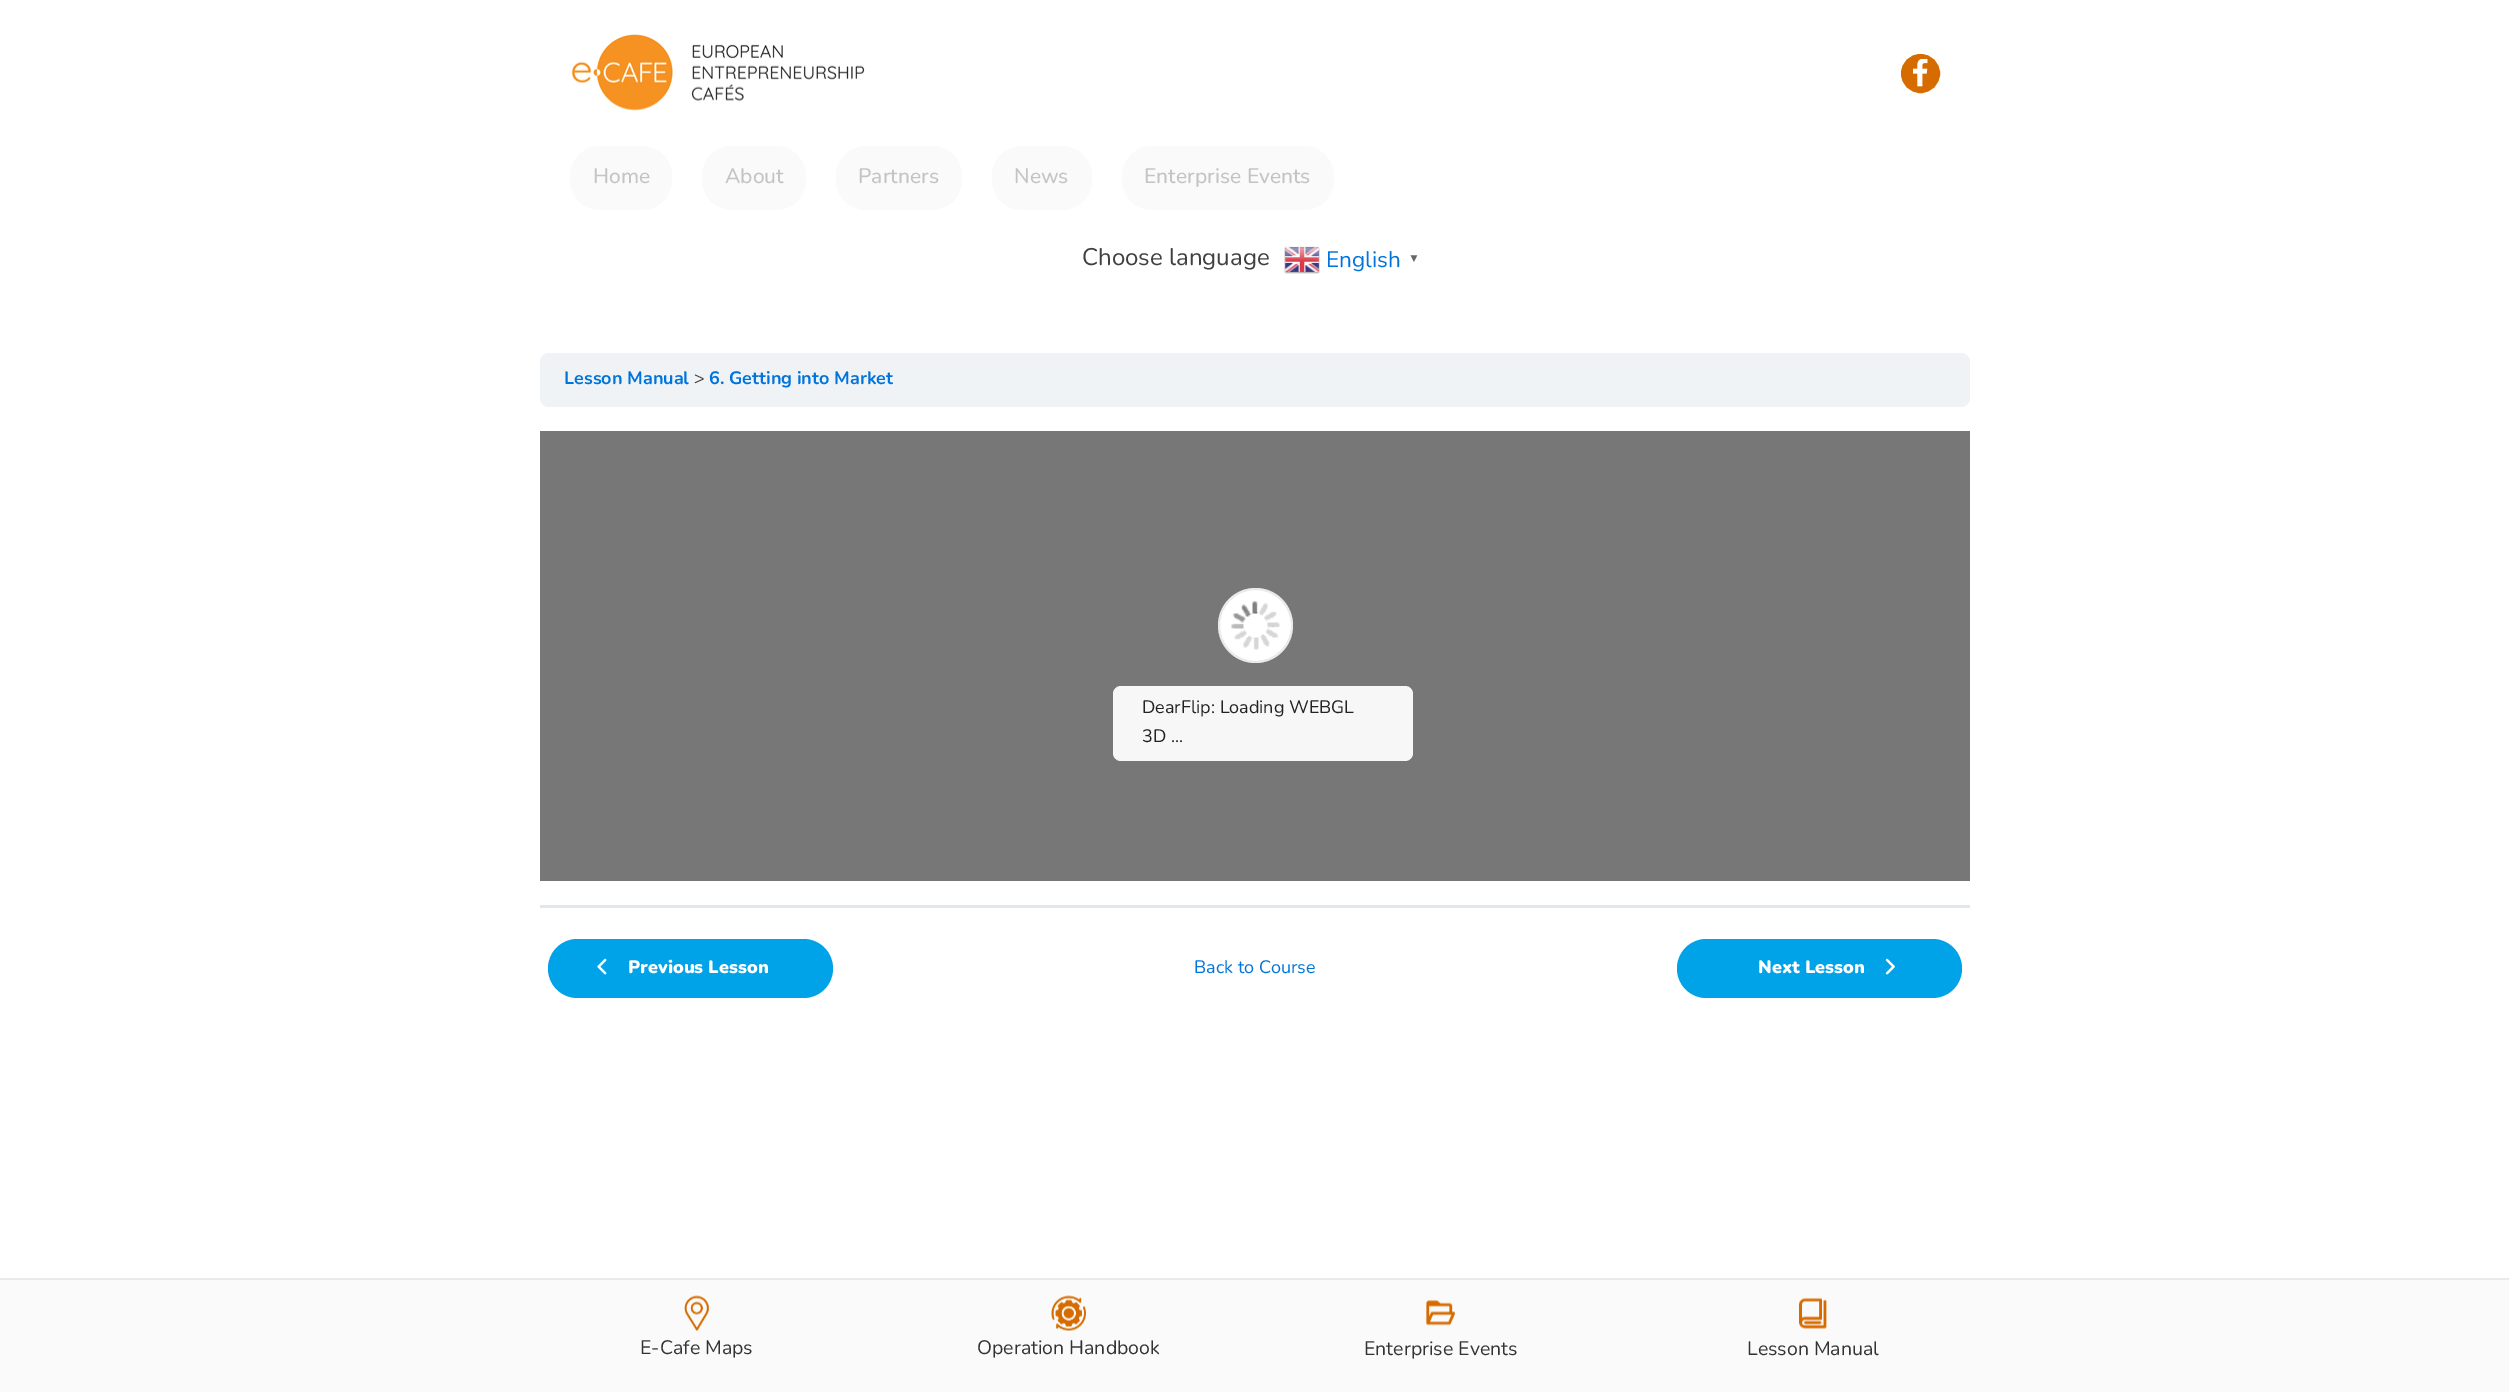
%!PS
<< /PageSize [2509 1392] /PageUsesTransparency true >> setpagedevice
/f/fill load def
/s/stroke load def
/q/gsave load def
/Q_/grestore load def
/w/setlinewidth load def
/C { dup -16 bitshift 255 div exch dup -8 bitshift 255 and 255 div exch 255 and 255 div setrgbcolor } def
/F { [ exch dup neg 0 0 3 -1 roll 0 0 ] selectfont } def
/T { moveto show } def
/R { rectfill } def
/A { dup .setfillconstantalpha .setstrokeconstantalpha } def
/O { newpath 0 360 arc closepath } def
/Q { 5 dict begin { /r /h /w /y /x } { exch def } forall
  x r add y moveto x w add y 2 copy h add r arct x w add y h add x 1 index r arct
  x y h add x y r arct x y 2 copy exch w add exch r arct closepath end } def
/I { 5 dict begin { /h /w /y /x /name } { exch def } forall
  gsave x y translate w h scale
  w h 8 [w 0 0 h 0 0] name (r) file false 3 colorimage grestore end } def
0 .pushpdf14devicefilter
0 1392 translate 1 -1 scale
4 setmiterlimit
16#FFFFFF C
0 0 2509 1392 R
(1.rgb) 572 34 293 77 I
16#D66B00 C
1920.5 73.5 18.5 O q f Q_
2 w
s
(2.rgb) 1913 59 15 28 I
16#FAFAFA C
570 146 102 64 30 Q f
/Nunito-Medium 21 F
16#C4C4C4 C
(Home) 593 183 T
16#FAFAFA C
702 146 104 64 30 Q f
16#C4C4C4 C
(About) 725 183 T
16#FAFAFA C
836 146 126 64 30 Q f
16#C4C4C4 C
(Partners) 858 183 T
16#FAFAFA C
992 146 100 64 30 Q f
16#C4C4C4 C
(News) 1014 183 T
16#FAFAFA C
1122 146 212 64 30 Q f
16#C4C4C4 C
(Enterprise Events) 1144 183 T
/Nunito-Regular 24 F
16#404040 C
(Choose language) 1082 265 T
(3.rgb) 1284 246 36 28 I
/Nunito-Regular 22.5 F
16#0074DB C
(English) 1326 267 T
/LiberationSerif-Bold 12 F
16#666666 C
(▼) 1408 262 T
16#F0F3F6 C
540 353 1430 54 9 Q f
/Nunito-Bold 18 F
16#0074DB C
(Lesson Manual) 564 384 T
/Nunito-Regular 18 F
16#404040 C
(>) 694 384 T
/Nunito-Bold 18 F
16#0074DB C
(6. Getting into Market) 709 384 T
16#777777 C
540 431 1430 450 R
16#FFFFFF C
1255.5 625.5 37.5 O f
0.2 A
16#969696 C
1255.5 625.5 36.5 O s
1 A
(4.rgb) 1231 601 49 49 I
16#F7F7F7 C
1113 686 300 75 8 Q f
/Nunito-Regular 18 F
16#222222 C
(DearFlip: Loading WEBGL) 1142 713 T
(3D ...) 1142 742 T
16#E2E7ED C
540 905 1430 3 R
16#00A2E8 C
548 939 285 59 29.5 Q f
(5.rgb) 597 958 10 17 I
/Nunito-Black 18 F
16#FFFFFF C
(Previous Lesson) 628 973 T
/Nunito-Regular 18 F
16#0074DB C
(Back to Course) 1194 973 T
16#00A2E8 C
1677 939 285 59 29.5 Q f
/Nunito-Black 18 F
16#FFFFFF C
(Next Lesson) 1758 973 T
(6.rgb) 1885 958 10 17 I
16#FAFAFA C
0 1280 2509 112 R
16#EAEAEA C
0 1278 2509 2 R
(7.rgb) 684 1295 25 36 I
/Nunito-Regular 19.5 F
16#333333 C
(E-Cafe Maps) 640 1354 T
(8.rgb) 1051 1295 35 36 I
(Operation Handbook) 977 1354 T
(9.rgb) 1426 1299 29 27 I
(Enterprise Events) 1364 1355 T
(10.rgb) 1799 1297 28 32 I
(Lesson Manual) 1747 1355 T
.poppdf14devicefilter showpage
